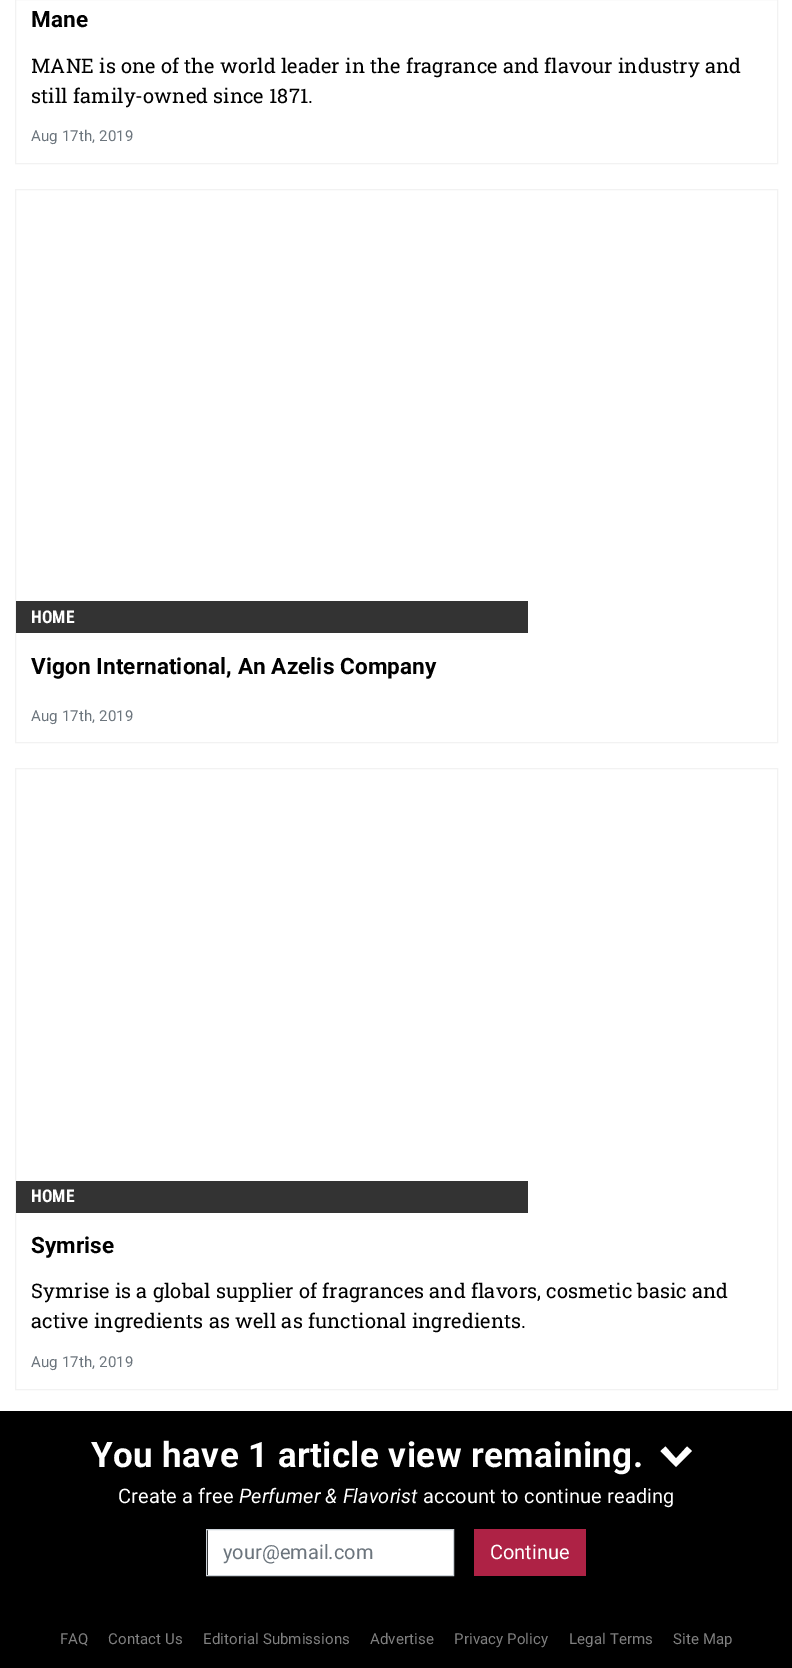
%!PS
<< /PageSize [792 1668] >> setpagedevice
/m/moveto load def
/l/rlineto load def
/z/closepath load def
/C { dup -16 bitshift 255 div exch dup -8 bitshift 255 and 255 div exch 255 and 255 div setrgbcolor } def
/F { [ exch dup neg 0 0 3 -1 roll 0 0 ] selectfont } def
/T { moveto show } def
/R { rectfill } def
0 1668 translate 1 -1 scale
4 setmiterlimit
16#FFFFFF C
0 0 792 1668 R
16#F2F2F2 C
15.5 -.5 762 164 rectstroke
/Roboto-Bold 22.5 F
16#000000 C
31 27 m .12 0 (Mane) ashow
/RobotoSlab-Regular 20 F
31 73 m .12 0 (MANE is one of the world leader in the fragrance and flavour industry and) ashow
31 103 m .12 0 (still family-owned since 1871.) ashow
/Roboto-Regular 15 F
16#6C757D C
31 141 m .12 0 (Aug 17th, 2019) ashow
16#F2F2F2 C
15.5 189.5 762 553 rectstroke
16#333333 C
16 601 512 32 R
/RobotoCondensed-Bold 17.5 F
16#FFFFFF C
(HOME) 31 623 T
/Roboto-Bold 22.5 F
16#000000 C
31 674 m .12 0 (Vigon International, An Azelis Company) ashow
/Roboto-Regular 15 F
16#6C757D C
31 721 m .12 0 (Aug 17th, 2019) ashow
16#F2F2F2 C
15.5 768.5 762 621 rectstroke
16#333333 C
16 1181 512 32 R
/RobotoCondensed-Bold 17.5 F
16#FFFFFF C
(HOME) 31 1202 T
/Roboto-Bold 22.5 F
16#000000 C
31 1253 m .12 0 (Symrise) ashow
/RobotoSlab-Regular 20 F
31 1298 m .12 0 (Symrise is a global supplier of fragrances and flavors, cosmetic basic and) ashow
31 1328 m .12 0 (active ingredients as well as functional ingredients.) ashow
/Roboto-Regular 15 F
16#6C757D C
31 1367 m .12 0 (Aug 17th, 2019) ashow
16#000000 C
0 1411 792 257 R
/Roboto-Bold 35 F
16#FFFFFF C
91 1467 m .4 0 (You have 1 article view remaining.) ashow
676 1467 m -15.5 -16 l 5 -4.5 l 10.5 12 l 11 -12 l 5 4.5 l z eofill
/Roboto-Regular 20 F
118 1503 m .12 0 (Create a free) ashow
/Roboto-Italic 20 F
239 1503 m .12 0 (Perfumer & Flavorist) ashow
/Roboto-Regular 20 F
423 1503 m .12 0 (account to continue reading) ashow
208 1530 245 45 R
16#CED4DA C
206.5 1529.5 247 46 rectstroke
16#6C757D C
(your@email.com) 223 1559 T
16#AE2245 C
474 1529 112 47 R
16#FFFFFF C
(Continue) 490 1559 T
/Roboto-Regular 15 F
16#808080 C
60 1644 m .12 0 (FAQ) ashow
108 1644 m .12 0 (Contact Us) ashow
203 1644 m .12 0 (Editorial Submissions) ashow
370 1644 m .12 0 (Advertise) ashow
454 1644 m .12 0 (Privacy Policy) ashow
569 1644 m .12 0 (Legal Terms) ashow
673 1644 m .12 0 (Site Map) ashow
showpage
